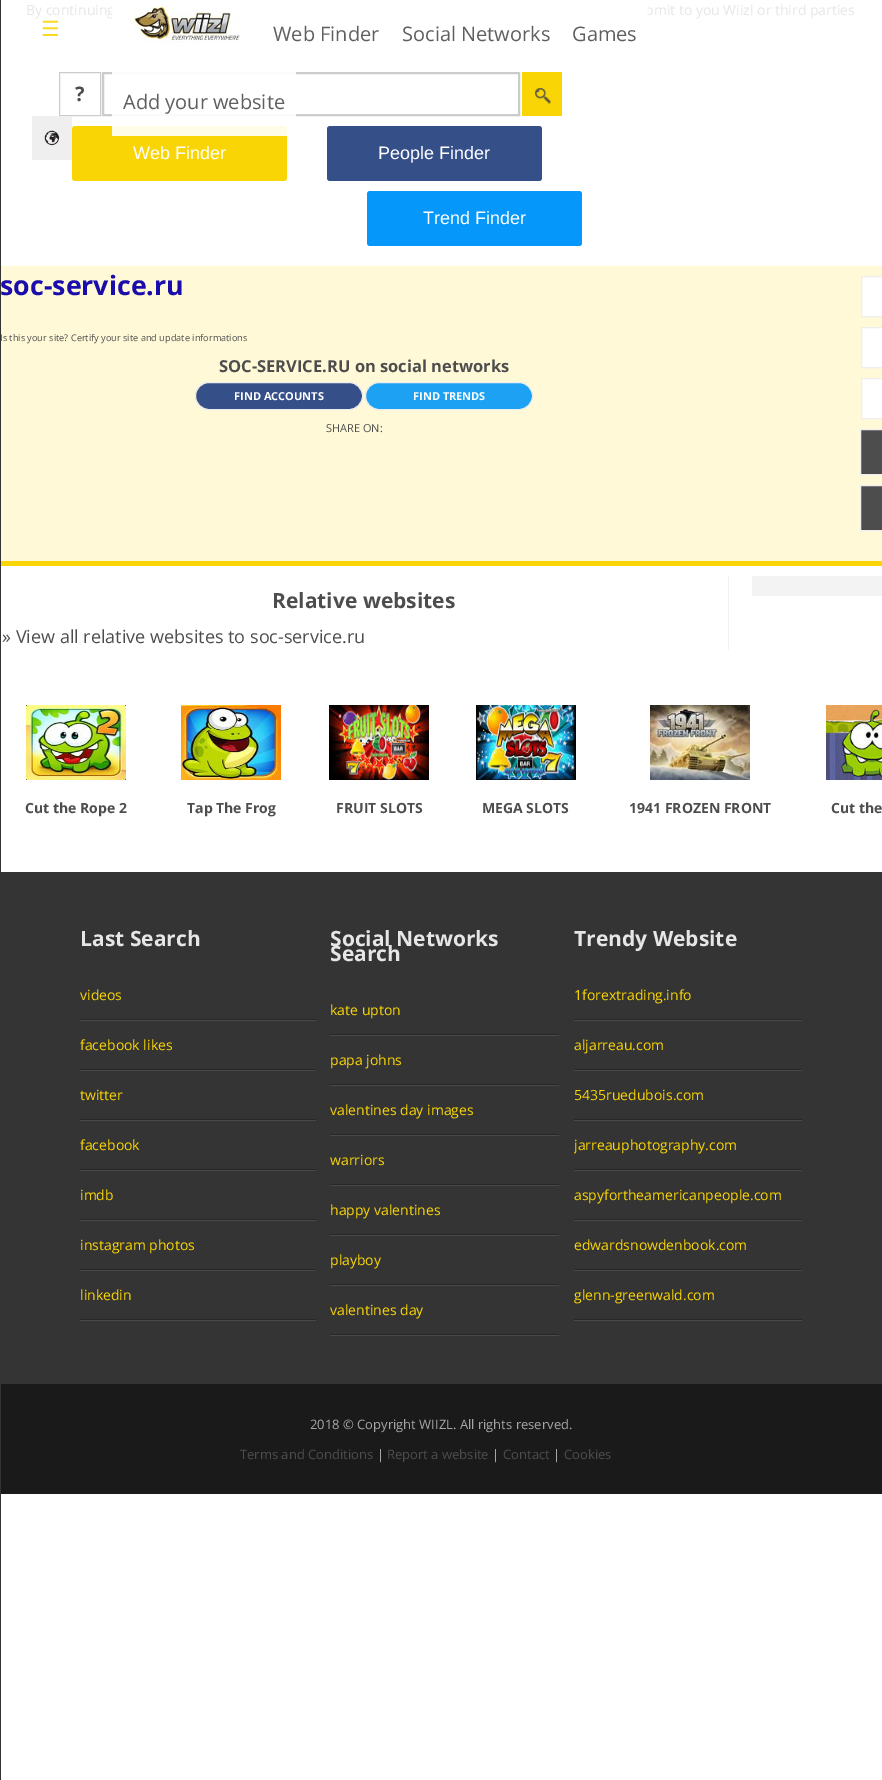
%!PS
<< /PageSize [882 1780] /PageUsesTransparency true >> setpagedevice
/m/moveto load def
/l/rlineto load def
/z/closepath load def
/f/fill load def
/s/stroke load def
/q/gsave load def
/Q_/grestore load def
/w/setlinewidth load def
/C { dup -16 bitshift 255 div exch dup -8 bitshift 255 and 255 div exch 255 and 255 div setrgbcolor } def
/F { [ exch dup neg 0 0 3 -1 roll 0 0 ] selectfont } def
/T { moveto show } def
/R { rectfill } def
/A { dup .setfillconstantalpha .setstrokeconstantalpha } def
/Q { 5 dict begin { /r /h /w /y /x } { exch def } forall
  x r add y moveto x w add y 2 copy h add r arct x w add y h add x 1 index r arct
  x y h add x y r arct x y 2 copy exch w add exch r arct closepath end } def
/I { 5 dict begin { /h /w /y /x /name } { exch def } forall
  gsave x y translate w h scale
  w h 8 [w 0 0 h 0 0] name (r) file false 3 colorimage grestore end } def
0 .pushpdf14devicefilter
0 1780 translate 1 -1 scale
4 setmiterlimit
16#FFFFFF C
0 0 882 1780 R
16#FFF9D7 C
1 266 881 295 R
/OpenSans-Regular 9.2 F
16#4D4D4D C
(Is this your site? Certify your site and update informations) 0 341 T
16#F9D505 C
0 561 882 5 R
16#333333 C
0 0 1 1780 R
/OpenSans-Regular 14 F
16#E6E6E6 C
(By continuing) 26 15 T
(bmit to you Wiizl or third parties) 645 15 T
16#F1F1F1 C
479.5 19.5 29 20 1.5 Q s
16#CCCCCC C
59.5 72.5 41 43 rectstroke
/OpenSans-Bold 20 F
16#4D4D4D C
(?) 75 101 T
16#CCCCCC C
2 w
103 73 416 42 rectstroke
16#F9D505 C
522 72 40 44 R
(1.rgb) 535 88 16 16 I
16#EFEFEF C
32 116 40 44 R
(2.rgb) 44 130 16 16 I
16#F9D505 C
72 126 215 55 3 Q f
/LiberationSans-Regular 18 F
16#FFFFFF C
(Web Finder) 133 159 T
16#355089 C
327 126 215 55 3 Q f
16#FFFFFF C
(People Finder) 378 159 T
16#0597F9 C
367 191 215 55 3 Q f
16#FFFFFF C
(Trend Finder) 423 224 T
/OpenSans-Bold 26.75 F
16#1A0DAB C
(soc-service.ru) 0 295 T
/OpenSans-Bold 16.5 F
16#4D4D4D C
(SOC-SERVICE.RU on social networks) 219 372 T
16#355089 C
195.5 382.5 167 27 13.5 Q q f Q_
16#EEEEEE C
1 w
s
/OpenSans-Bold 11 F
16#FFFFFF C
(FIND ACCOUNTS) 234 400 T
16#1DA1F2 C
365.5 382.5 167 27 13.5 Q q f Q_
16#EEEEEE C
s
16#FFFFFF C
(FIND TRENDS) 413 400 T
/OpenSans-Regular 11 F
16#4D4D4D C
(SHARE ON:) 326 432 T
16#FFFFFF C
861.5 276.5 m 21 0 l 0 40 l -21 0 l z q f Q_
16#EEEEEE C
s
16#FFFFFF C
861.5 327.5 m 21 0 l 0 40 l -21 0 l z q f Q_
16#EEEEEE C
s
16#FFFFFF C
861.5 378.5 m 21 0 l 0 40 l -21 0 l z q f Q_
16#EEEEEE C
s
16#4D4D4D C
860.5 429.5 m 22 0 l 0 45 l -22 0 l z q f Q_
16#EEEEEE C
s
16#4D4D4D C
860.5 485.5 m 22 0 l 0 45 l -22 0 l z q f Q_
16#EEEEEE C
s
16#F3F3F3 C
752 576 130 20 R
16#F2F2F2 C
728 576 1 74 R
/OpenSans-Bold 21 F
16#4D4D4D C
(Relative websites) 272 608 T
/OpenSans-Regular 18 F
(» View all relative websites to soc-service.ru) 2 643 T
/DejaVuSans-Regular 21 F
16#FAD91E C
(☰) 41 36 T
0.9 A
16#FFFFFF C
112 7 3 12 R
1 A
(3.rgb) 134 7 106 36 I
/OpenSans-Regular 20 F
16#5F5F5F C
(Web Finder) 273 41 T
0.9 A
16#FFFFFF C
479 19 30 21 R
1 A
16#5F5F5F C
(Social Networks) 402 41 T
0.9 A
16#FFFFFF C
646 4 2 11 R
1 A
16#5F5F5F C
(Games) 572 41 T
0.9 A
16#FFFFFF C
112 72 184 64 R
1 A
16#5F5F5F C
(Add your website) 123 109 T
(4.rgb) 26 705 100 75 I
/OpenSans-Bold 14 F
16#4D4D4D C
(Cut the Rope 2) 25 813 T
(5.rgb) 181 705 100 75 I
(Tap The Frog) 187 813 T
(6.rgb) 329 705 100 75 I
(FRUIT SLOTS) 336 813 T
(7.rgb) 476 705 100 75 I
(MEGA SLOTS) 482 813 T
(8.rgb) 650 705 100 75 I
(1941 FROZEN FRONT) 629 813 T
(9.rgb) 826 705 56 75 I
(Cut the) 831 813 T
16#343434 C
1 872 881 512 R
/OpenSans-Bold 21 F
16#E6E6E6 C
(Last Search) 80 946 T
16#25282A C
80 1019 236 1 R
/OpenSans-Regular 14 F
16#F9D505 C
(videos) 80 1000 T
16#494949 C
80 1020 236 1 R
16#25282A C
80 1069 236 1 R
16#F9D505 C
(facebook likes) 80 1050 T
16#494949 C
80 1070 236 1 R
16#25282A C
80 1119 236 1 R
16#F9D505 C
(twitter) 80 1100 T
16#494949 C
80 1120 236 1 R
16#25282A C
80 1169 236 1 R
16#F9D505 C
(facebook) 80 1150 T
16#494949 C
80 1170 236 1 R
16#25282A C
80 1219 236 1 R
16#F9D505 C
(imdb) 80 1200 T
16#494949 C
80 1220 236 1 R
16#25282A C
80 1269 236 1 R
16#F9D505 C
(instagram photos) 80 1250 T
16#494949 C
80 1270 236 1 R
16#25282A C
80 1319 236 1 R
16#F9D505 C
(linkedin) 80 1300 T
16#494949 C
80 1320 236 1 R
/OpenSans-Bold 21 F
16#E6E6E6 C
(Social Networks) 330 946 T
(Search) 330 961 T
16#25282A C
330 1034 229 1 R
/OpenSans-Regular 14 F
16#F9D505 C
(kate upton) 330 1015 T
16#494949 C
330 1035 229 1 R
16#25282A C
330 1084 229 1 R
16#F9D505 C
(papa johns) 330 1065 T
16#494949 C
330 1085 229 1 R
16#25282A C
330 1134 229 1 R
16#F9D505 C
(valentines day images) 330 1115 T
16#494949 C
330 1135 229 1 R
16#25282A C
330 1184 229 1 R
16#F9D505 C
(warriors) 330 1165 T
16#494949 C
330 1185 229 1 R
16#25282A C
330 1234 229 1 R
16#F9D505 C
(happy valentines) 330 1215 T
16#494949 C
330 1235 229 1 R
16#25282A C
330 1284 229 1 R
16#F9D505 C
(playboy) 330 1265 T
16#494949 C
330 1285 229 1 R
16#25282A C
330 1334 229 1 R
16#F9D505 C
(valentines day) 330 1315 T
16#494949 C
330 1335 229 1 R
/OpenSans-Bold 21 F
16#E6E6E6 C
(Trendy Website) 574 946 T
16#25282A C
574 1019 228 1 R
/OpenSans-Regular 14 F
16#F9D505 C
(1forextrading.info) 574 1000 T
16#494949 C
574 1020 228 1 R
16#25282A C
574 1069 228 1 R
16#F9D505 C
(aljarreau.com) 574 1050 T
16#494949 C
574 1070 228 1 R
16#25282A C
574 1119 228 1 R
16#F9D505 C
(5435ruedubois.com) 574 1100 T
16#494949 C
574 1120 228 1 R
16#25282A C
574 1169 228 1 R
q
574 971 228 350 rectclip
16#F9D505 C
(jarreauphotography.com) 574 1150 T
Q_
16#494949 C
574 1170 228 1 R
16#25282A C
574 1219 228 1 R
16#F9D505 C
(aspyfortheamericanpeople.com) 574 1200 T
16#494949 C
574 1220 228 1 R
16#25282A C
574 1269 228 1 R
16#F9D505 C
(edwardsnowdenbook.com) 574 1250 T
16#494949 C
574 1270 228 1 R
16#25282A C
574 1319 228 1 R
16#F9D505 C
(glenn-greenwald.com) 574 1300 T
16#494949 C
574 1320 228 1 R
16#1A1A1A C
1 1384 881 110 R
/OpenSans-Regular 13 F
16#A6A6A6 C
(2018 © Copyright WIIZL. All rights reserved.) 310 1429 T
16#4D4D4D C
(Terms and Conditions) 240 1459 T
16#A6A6A6 C
(|) 377 1459 T
16#4D4D4D C
(Report a website) 387 1459 T
16#A6A6A6 C
(|) 492 1459 T
16#4D4D4D C
(Contact) 503 1459 T
16#A6A6A6 C
(|) 553 1459 T
16#4D4D4D C
(Cookies) 564 1459 T
.poppdf14devicefilter showpage
